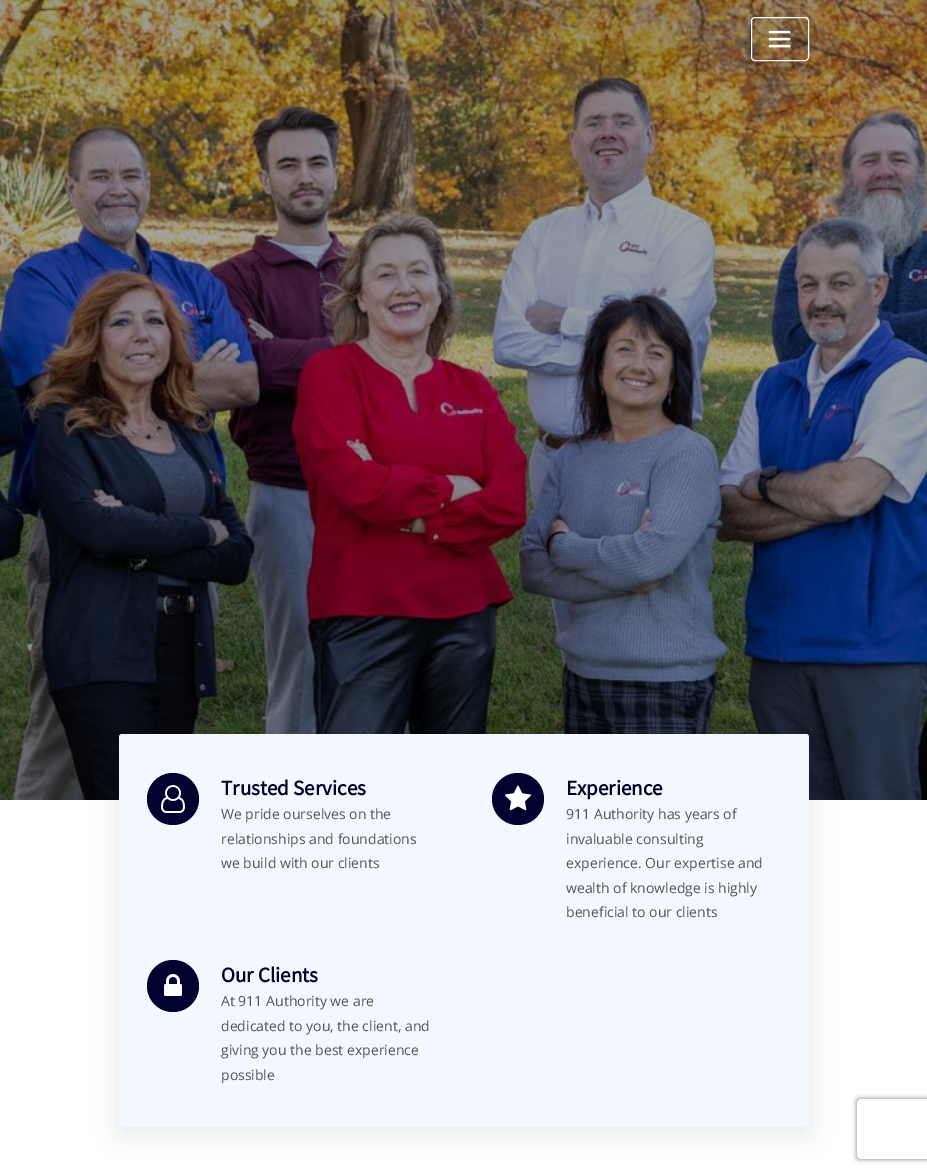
%!PS
<< /PageSize [927 1173] /PageUsesTransparency true >> setpagedevice
/m/moveto load def
/l/rlineto load def
/c/rcurveto load def
/z/closepath load def
/f/fill load def
/s/stroke load def
/q/gsave load def
/Q_/grestore load def
/C { dup -16 bitshift 255 div exch dup -8 bitshift 255 and 255 div exch 255 and 255 div setrgbcolor } def
/F { [ exch dup neg 0 0 3 -1 roll 0 0 ] selectfont } def
/T { moveto show } def
/R { rectfill } def
/A { dup .setfillconstantalpha .setstrokeconstantalpha } def
/O { newpath 0 360 arc closepath } def
/Q { 5 dict begin { /r /h /w /y /x } { exch def } forall
  x r add y moveto x w add y 2 copy h add r arct x w add y h add x 1 index r arct
  x y h add x y r arct x y 2 copy exch w add exch r arct closepath end } def
/S { 12 dict begin { /a /b /q /h /w /y /x } { exch def } forall gsave /was 0 def
  9 -2 -9 { dup b mul 4 div /e exch def 1 sub .425 mul 2.718 exch exp 1 add a .99 .min exch div /now exch def
    1 1 now sub 1 was sub div sub A /was now def
    w h .min e 2 mul add 0 gt { x e sub y e sub w e 2 mul add h e 2 mul add
      q e add b .6 mul add w h .min 2 div e add .min 0 .max Q fill } if } for grestore end } def
/I { 5 dict begin { /h /w /y /x /name } { exch def } forall
  gsave x y translate w h scale
  w h 8 [w 0 0 h 0 0] name (r) file false 3 colorimage grestore end } def
0 .pushpdf14devicefilter
0 1173 translate 1 -1 scale
4 setmiterlimit
16#FFFFFF C
0 0 927 1173 R
(1.rgb) 0 0 927 800 I
0.05 A
16#000000 C
0 0 927 75 R
1 A
16#FFFFFF C
751.5 17.5 57 43 3.5 Q s
(2.rgb) 768 30 23 18 I
16#000000 C
118 740 692 395 4 12.5 .08 S
16#F3F8FE C
119 734 690 393 3 Q f
16#01012F C
173 799 26 O f
(3.rgb) 161 785 24 28 I
/SourceSansPro-Bold 21 F
(Trusted Services) 221 795 T
/OpenSans-Regular 14 F
16#545454 C
(We pride ourselves on the) 221 819 T
(relationships and foundations) 221 844 T
(we build with our clients) 221 868 T
16#01012F C
518 799 26 O f
(4.rgb) 505 785 26 26 I
/SourceSansPro-Bold 21 F
(Experience) 566 795 T
/OpenSans-Regular 14 F
16#545454 C
(911 Authority has years of) 566 819 T
(invaluable consulting) 566 844 T
(experience. Our expertise and) 566 868 T
(wealth of knowledge is highly) 566 893 T
(beneficial to our clients) 566 917 T
16#01012F C
173 986 26 O f
(5.rgb) 164 974 18 22 I
/SourceSansPro-Bold 21 F
(Our Clients) 221 982 T
/OpenSans-Regular 14 F
16#545454 C
(At 911 Authority we are) 221 1006 T
(dedicated to you, the client, and) 221 1031 T
(giving you the best experience) 221 1055 T
(possible) 221 1080 T
q
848 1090 m 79 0 l 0 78 l -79 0 l z 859 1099 m 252 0 l 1 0 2 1 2 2 c 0 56 l 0 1 -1 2 -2 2 c -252 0 l -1 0 -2 -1 -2 -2 c 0 -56 l 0 -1 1 -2 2 -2 c z eoclip newpath
16#808080 C
857 1099 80 60 2 2.5 1 S
Q_
.poppdf14devicefilter showpage
